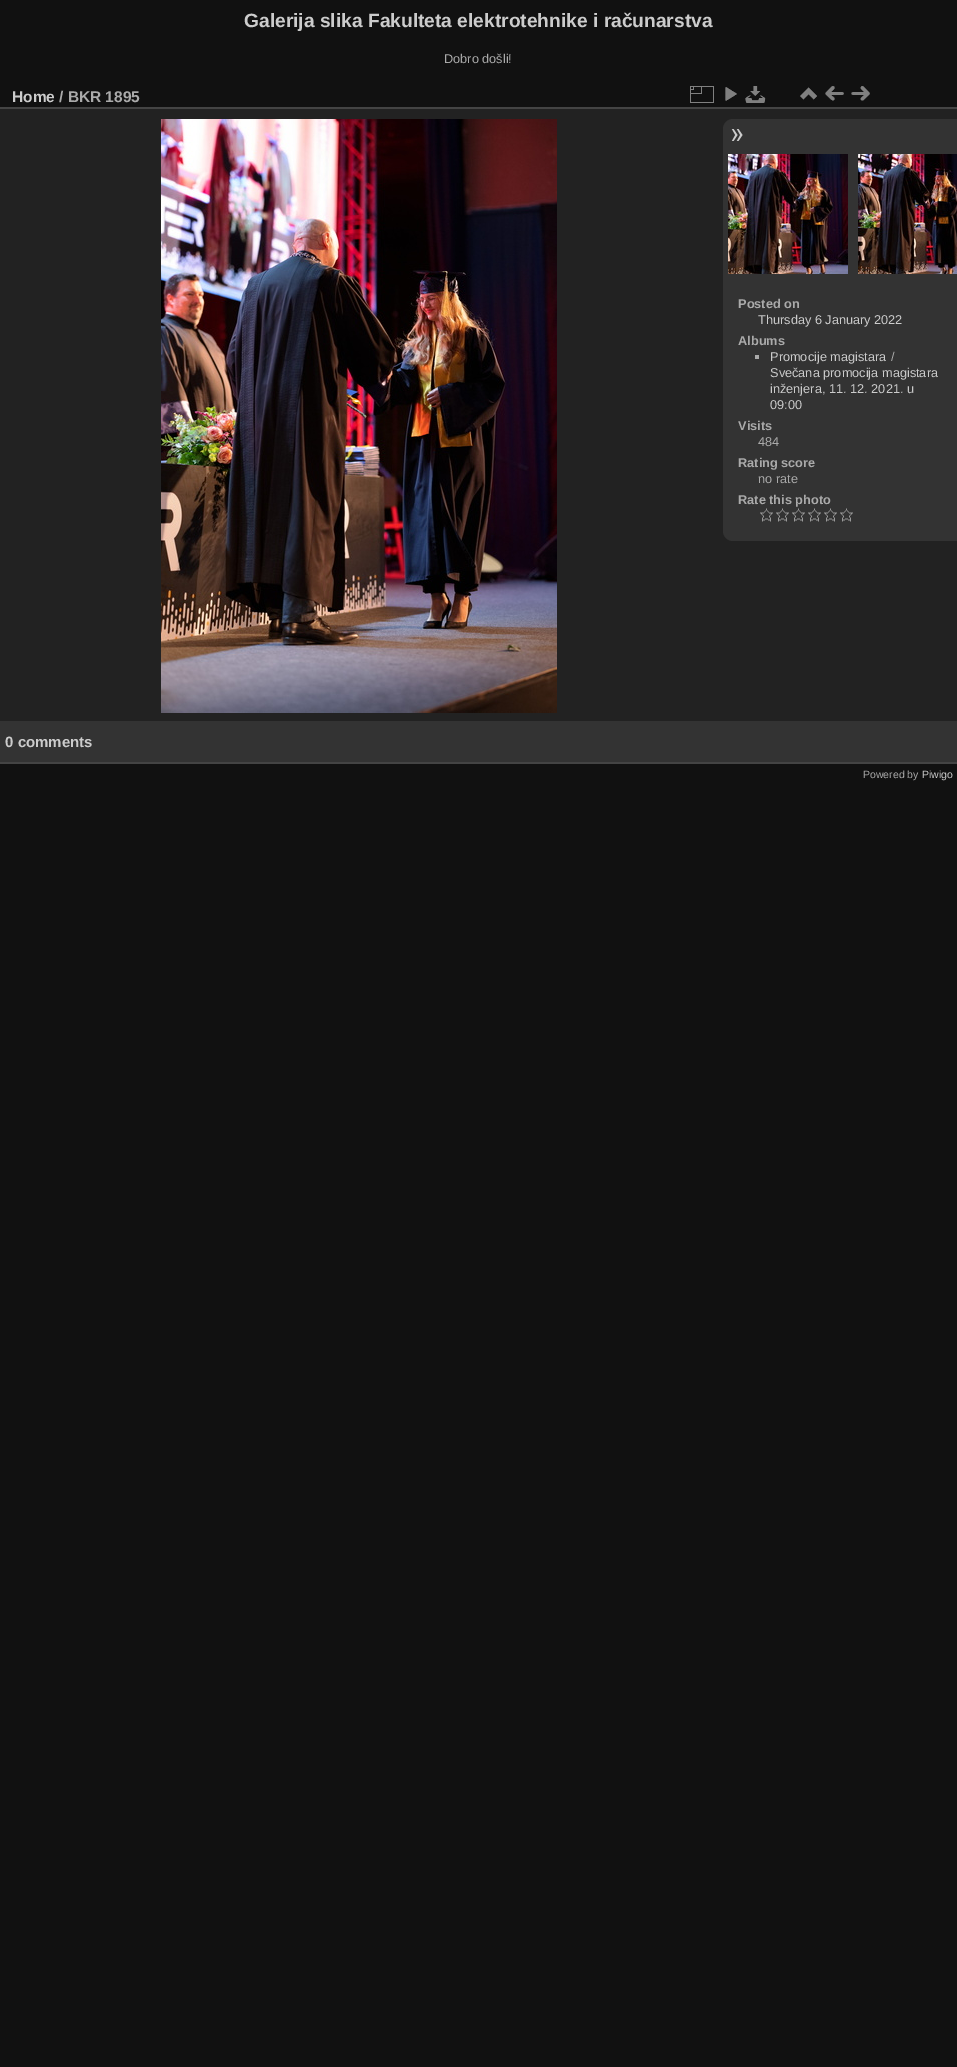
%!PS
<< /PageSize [957 2067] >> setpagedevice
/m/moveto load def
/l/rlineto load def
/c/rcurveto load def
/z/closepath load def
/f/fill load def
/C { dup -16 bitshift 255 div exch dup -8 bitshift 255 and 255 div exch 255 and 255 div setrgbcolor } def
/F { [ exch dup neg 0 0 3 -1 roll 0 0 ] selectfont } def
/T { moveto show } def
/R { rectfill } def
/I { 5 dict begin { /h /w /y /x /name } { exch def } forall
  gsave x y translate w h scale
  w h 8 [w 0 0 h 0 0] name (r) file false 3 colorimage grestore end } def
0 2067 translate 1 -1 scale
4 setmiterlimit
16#111111 C
0 0 957 2067 R
/LiberationSans-Bold 19.2 F
16#CCCCCC C
(Galerija slika Fakulteta elektrotehnike i računarstva) 244 27 T
/LiberationSans-Regular 12.75 F
16#AAAAAA C
(Dobro došli!) 444 63 T
16#222222 C
0 109 957 612 R
16#444444 C
0 762 957 2 R
0 107 957 2 R
/LiberationSans-Bold 15.5 F
16#CCCCCC C
(Home) 12 102 T
16#AAAAAA C
(/ BKR 1895) 59 102 T
(1.rgb) 690 86 24 17 I
(2.rgb) 725 87 12 14 I
(3.rgb) 745 86 21 17 I
(4.rgb) 800 87 17 13 I
(5.rgb) 825 86 19 15 I
(6.rgb) 851 86 19 15 I
(7.rgb) 161 119 396 594 I
16#333333 C
733 119 m 224 0 l 0 422 l -224 0 l -5.5 0 -10 -4.5 -10 -10 c 0 -402 l 0 -5.5 4.5 -10 10 -10 c z f
(8.rgb) 731 129 12 12 I
(9.rgb) 728 154 120 120 I
(10.rgb) 858 154 99 120 I
/LiberationSans-Bold 12.75 F
16#AAAAAA C
(Posted on) 738 308 T
/LiberationSans-Regular 12.75 F
16#CCCCCC C
(Thursday 6 January 2022) 758 324 T
/LiberationSans-Bold 12.75 F
16#AAAAAA C
(Albums) 738 345 T
755 355 4 4 R
/LiberationSans-Regular 12.75 F
16#CCCCCC C
(Promocije magistara) 770 361 T
16#AAAAAA C
(/) 891 361 T
16#CCCCCC C
(Svečana promocija magistara) 770 377 T
(inženjera, 11. 12. 2021. u) 770 393 T
(09:00) 770 409 T
/LiberationSans-Bold 12.75 F
16#AAAAAA C
(Visits) 738 430 T
/LiberationSans-Regular 12.75 F
(484) 758 446 T
/LiberationSans-Bold 12.75 F
(Rating score) 738 467 T
/LiberationSans-Regular 12.75 F
(no rate) 758 483 T
/LiberationSans-Bold 12.75 F
(Rate this photo) 738 504 T
(11.rgb) 760 508 13 14 I
(11.rgb) 776 508 13 14 I
(11.rgb) 792 508 13 14 I
(11.rgb) 808 508 13 14 I
(11.rgb) 824 508 13 14 I
(11.rgb) 840 508 13 14 I
16#333333 C
0 721 957 41 R
/LiberationSans-Bold 15 F
16#CCCCCC C
(0 comments) 5 747 T
/LiberationSans-Regular 10.5 F
16#AAAAAA C
(Powered by) 863 778 T
16#CCCCCC C
(Piwigo) 922 778 T
showpage
